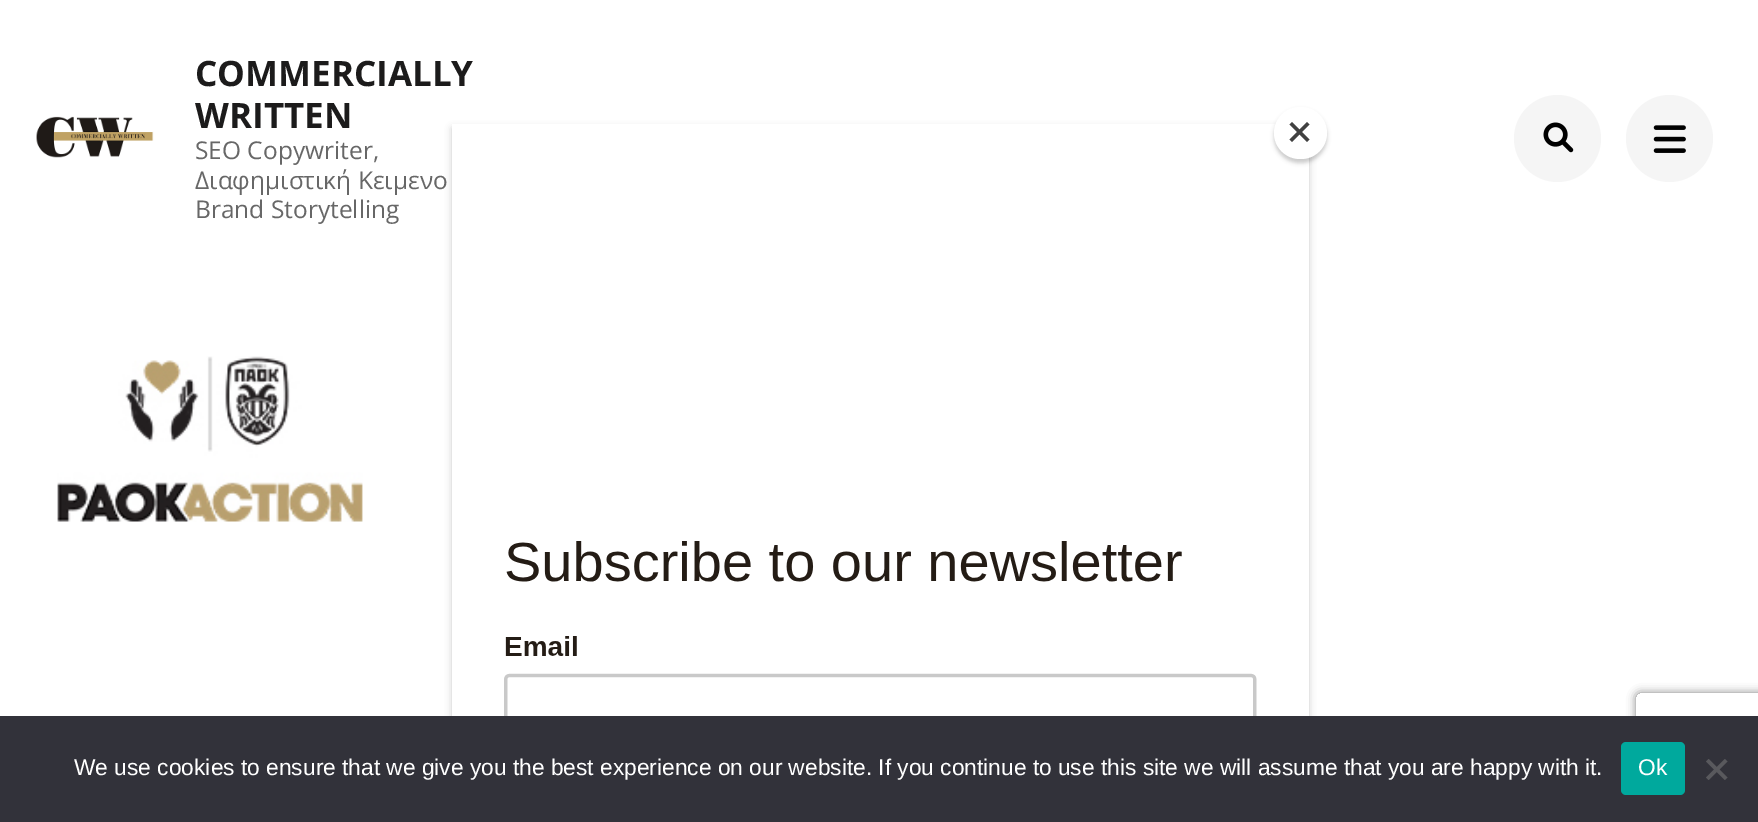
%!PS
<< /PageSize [1758 822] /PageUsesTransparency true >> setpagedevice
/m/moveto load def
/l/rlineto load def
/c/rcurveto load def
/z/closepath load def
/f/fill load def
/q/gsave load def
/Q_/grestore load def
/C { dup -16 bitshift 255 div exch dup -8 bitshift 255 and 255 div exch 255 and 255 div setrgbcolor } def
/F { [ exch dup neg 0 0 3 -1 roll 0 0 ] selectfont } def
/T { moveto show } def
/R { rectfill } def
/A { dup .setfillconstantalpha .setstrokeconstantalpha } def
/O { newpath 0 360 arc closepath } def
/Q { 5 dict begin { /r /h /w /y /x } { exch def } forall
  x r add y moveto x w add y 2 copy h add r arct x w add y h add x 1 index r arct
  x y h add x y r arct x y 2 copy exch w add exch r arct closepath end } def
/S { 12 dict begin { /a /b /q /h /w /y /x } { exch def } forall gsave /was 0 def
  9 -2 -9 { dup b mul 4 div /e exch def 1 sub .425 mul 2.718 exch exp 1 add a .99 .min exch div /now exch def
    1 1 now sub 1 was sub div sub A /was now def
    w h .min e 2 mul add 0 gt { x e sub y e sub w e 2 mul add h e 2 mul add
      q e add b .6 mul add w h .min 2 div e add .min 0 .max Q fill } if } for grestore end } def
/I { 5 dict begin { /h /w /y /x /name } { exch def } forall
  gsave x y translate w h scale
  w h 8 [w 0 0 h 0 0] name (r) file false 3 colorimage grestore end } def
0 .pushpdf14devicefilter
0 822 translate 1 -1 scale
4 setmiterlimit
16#FFFFFF C
0 0 1758 822 R
(1.rgb) 36 116 118 42 I
/OpenSans-Bold 35 F
16#1C1B1B C
(COMMERCIALLY) 195 86 T
(WRITTEN) 195 128 T
/OpenSans-Regular 24.5 F
16#676767 C
(SEO Copywriter,) 195 159 T
(Διαφημιστική Κειμενο) 195 189 T
(Brand Storytelling) 195 218 T
16#F5F5F5 C
1557.5 138.5 43.5 O f
(2.rgb) 1543 122 31 31 I
1669.5 138.5 43.5 O f
(3.rgb) 1653 125 33 28 I
(4.rgb) 57 356 306 166 I
q
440 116 m 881 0 l 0 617 l -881 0 l z 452 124 m 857 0 l 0 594 l -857 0 l z eoclip newpath
16#000000 C
452 128 857 593 0 3.5 .2 S
Q_
(5.rgb) 452 169 857 547 I
16#000000 C
1274 110 53 53 26.5 2 .2 S
16#FFFFFF C
1274 107 53 52 26 Q f
16#414141 C
1307 122 m 2.5 2.5 l -17.5 17.5 l -2.5 -2.5 l z f
1289.5 124.5 m 2.5 -2.5 l 17.5 17.5 l -2.5 2.5 l z f
q
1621 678 m 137 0 l 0 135 l -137 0 l z 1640 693 m 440 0 l 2 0 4 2 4 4 c 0 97 l 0 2 -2 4 -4 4 c -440 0 l -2 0 -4 -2 -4 -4 c 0 -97 l 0 -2 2 -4 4 -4 c z eoclip newpath
16#808080 C
1636 693 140 105 4 4.5 1 S
Q_
16#32323A C
0 716 1758 106 R
/LiberationSans-Regular 22.75 F
16#FFFFFF C
(We use cookies to ensure that we give you the best experience on our website. If you continue to use this site we will assume that you are happy with it.) 74 775 T
16#00A99D C
1621 742 64 53 5 Q f
16#FFFFFF C
(Ok) 1638 775 T
16#59595D C
1725 759 m 2.5 2.5 l -19 18.5 l -2.5 -2.5 l z f
1706 761.5 m 2.5 -2.5 l 19 18.5 l -2.5 2.5 l z f
.poppdf14devicefilter showpage
